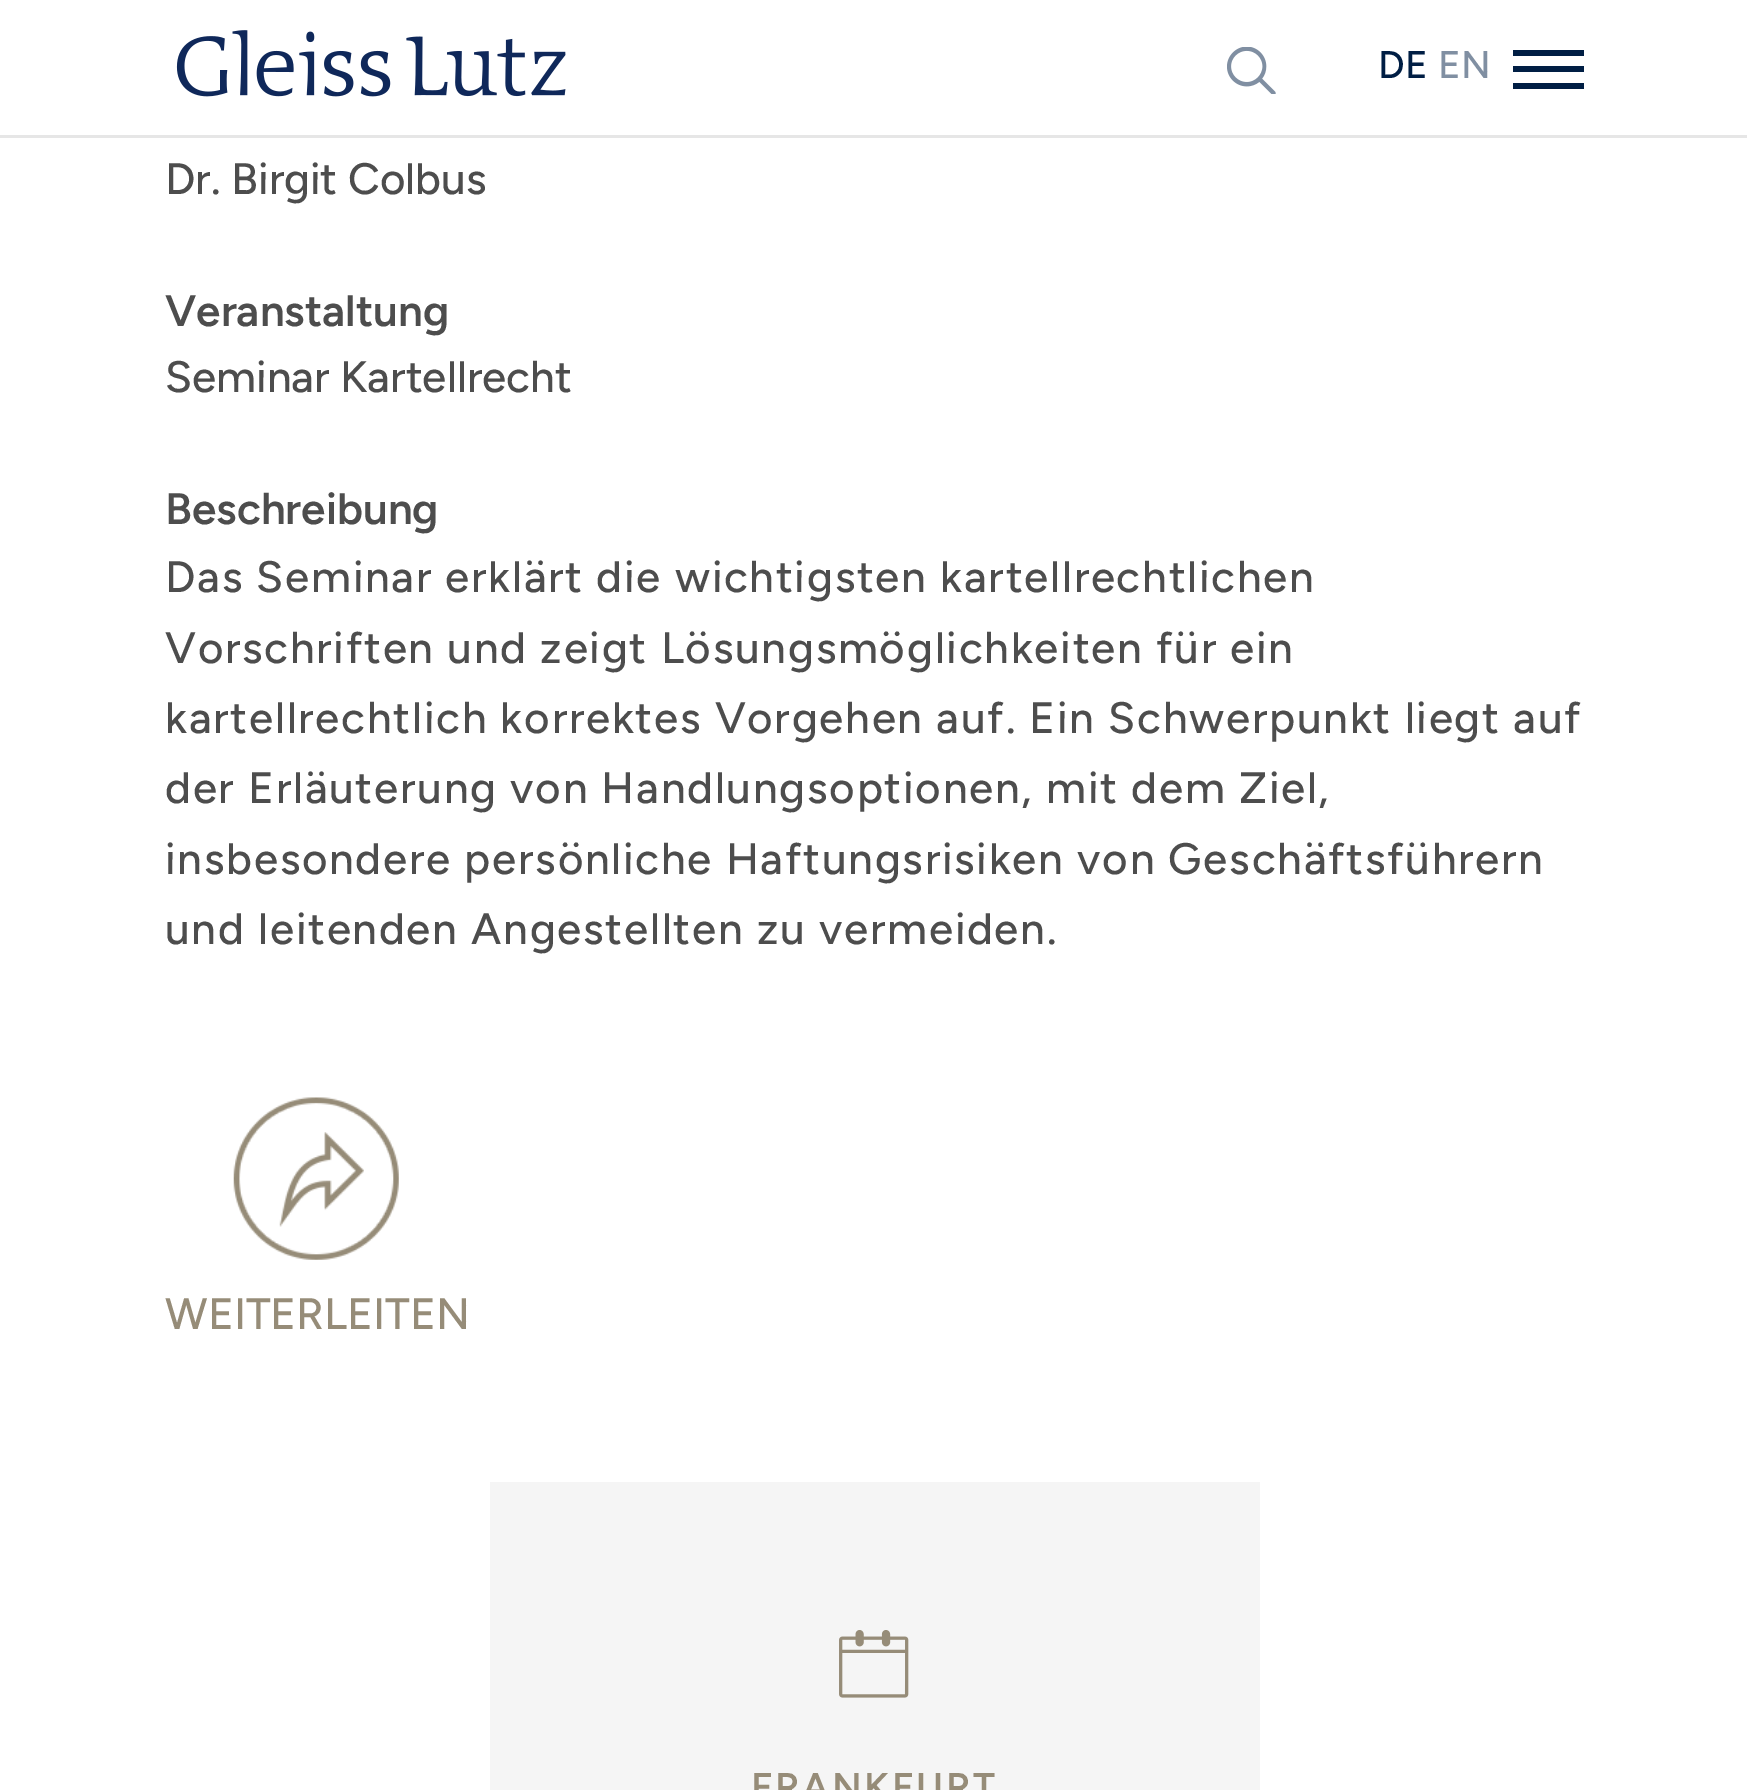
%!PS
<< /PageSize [1747 1790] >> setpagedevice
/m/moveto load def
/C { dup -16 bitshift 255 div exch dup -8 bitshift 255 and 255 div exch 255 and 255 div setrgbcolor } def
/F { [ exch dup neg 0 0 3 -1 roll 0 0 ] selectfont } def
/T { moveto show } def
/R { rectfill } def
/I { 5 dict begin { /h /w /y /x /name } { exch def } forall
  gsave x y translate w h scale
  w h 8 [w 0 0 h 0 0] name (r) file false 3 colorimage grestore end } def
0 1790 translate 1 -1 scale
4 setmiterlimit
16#FFFFFF C
0 0 1747 1790 R
16#E6E6E6 C
0 135 1747 3 R
(1.rgb) 176 30 390 67 I
(2.rgb) 1227 47 49 47 I
/Figtree-Medium 38.5 F
16#001E44 C
(DE) 1378 78 T
16#808FA2 C
(EN) 1438 78 T
16#001E44 C
1513 66 71 6 R
1513 50 71 6 R
1513 83 71 6 R
/Figtree-Medium 44 F
16#4D4D4D C
(Dr. Birgit Colbus) 165 194 T
/Figtree-SemiBold 44 F
(Veranstaltung) 165 326 T
/Figtree-Medium 44 F
(Seminar Kartellrecht) 165 392 T
/Figtree-SemiBold 44 F
(Beschreibung) 165 524 T
/Figtree-Medium 44 F
165 592 m 1.75 0 (Das Seminar erklärt die wichtigsten kartellrechtlichen) ashow
165 663 m 1.75 0 (Vorschriften und zeigt Lösungsmöglichkeiten für ein) ashow
165 733 m 1.75 0 (kartellrechtlich korrektes Vorgehen auf. Ein Schwerpunkt liegt auf) ashow
165 803 m 1.75 0 (der Erläuterung von Handlungsoptionen, mit dem Ziel,) ashow
165 874 m 1.75 0 (insbesondere persönliche Haftungsrisiken von Geschäftsführern) ashow
165 944 m 1.75 0 (und leitenden Angestellten zu vermeiden.) ashow
(3.rgb) 233 1097 166 163 I
16#968C78 C
(WEITERLEITEN) 165 1329 T
16#F5F5F5 C
490 1482 770 308 R
(4.rgb) 839 1630 70 68 I
/Figtree-SemiBold 38.5 F
16#968C78 C
751 1800 m 2.75 0 (FRANKFURT) ashow
showpage
